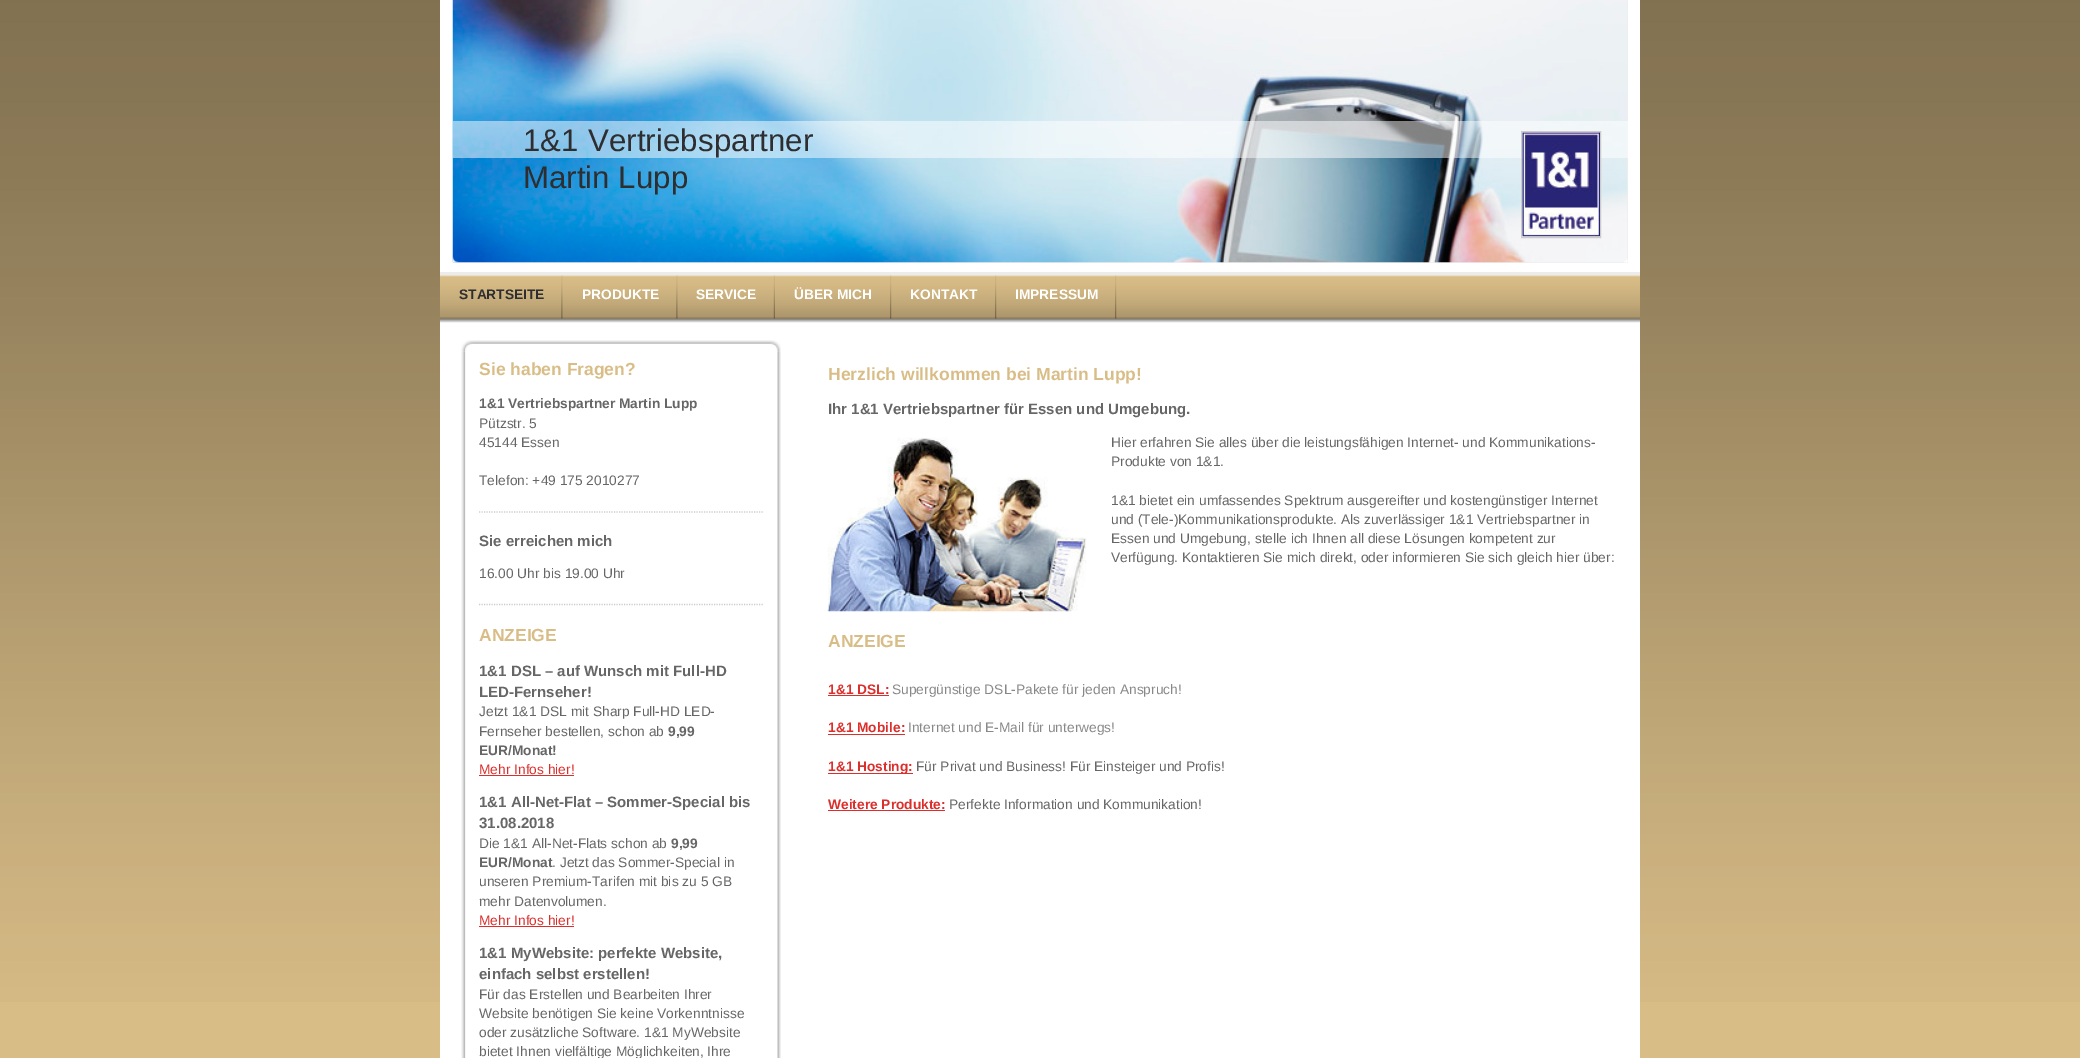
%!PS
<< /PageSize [2080 1058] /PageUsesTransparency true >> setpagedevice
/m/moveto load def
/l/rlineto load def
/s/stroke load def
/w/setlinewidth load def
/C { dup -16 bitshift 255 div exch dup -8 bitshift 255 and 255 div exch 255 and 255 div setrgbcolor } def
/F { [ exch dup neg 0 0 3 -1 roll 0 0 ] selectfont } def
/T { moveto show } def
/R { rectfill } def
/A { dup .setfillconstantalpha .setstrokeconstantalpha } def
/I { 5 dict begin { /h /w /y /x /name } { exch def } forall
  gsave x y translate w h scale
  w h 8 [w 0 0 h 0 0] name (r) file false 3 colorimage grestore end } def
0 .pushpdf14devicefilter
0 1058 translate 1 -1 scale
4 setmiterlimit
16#D9BD87 C
0 0 2080 1058 R
(1.rgb) 0 0 2080 1002 I
16#FFFFFF C
440 0 1200 1058 R
16#EEEEEE C
453 0 1175 263 R
(2.rgb) 452 0 1176 263 I
0.5 A
16#FFFFFF C
453 121 1175 37 R
/LiberationSans-Regular 31.25 F
1 A
16#2E2E30 C
523 151 m .1 0 (1&1 Vertriebspartner) ashow
(Martin Lupp) 523 188 T
16#CCCCCC C
1521.5 131.5 79 106 rectstroke
(3.rgb) 1522 132 78 105 I
(4.rgb) 452 256 7 7 I
(5.rgb) 1624 259 4 4 I
16#ECECEC C
440 272 1200 3 R
16#D9BD87 C
440 275 1200 44 R
(10.rgb) 440 318 1200 5 I
(6.rgb) 440 275 1200 44 I
(7.rgb) 561 275 2 44 I
/LiberationSans-Bold 13.75 F
16#2E2E30 C
(STARTSEITE) 459 299 T
(7.rgb) 676 275 2 44 I
16#FFFFFF C
(PRODUKTE) 582 299 T
(8.rgb) 773 275 2 44 I
(SERVICE) 696 299 T
(9.rgb) 890 275 2 44 I
(ÜBER MICH) 794 299 T
(9.rgb) 995 275 2 44 I
(KONTAKT) 910 299 T
(9.rgb) 1115 275 2 44 I
(IMPRESSUM) 1015 299 T
(11.rgb) 461 340 320 12 I
(12.rgb) 461 351 320 707 I
/LiberationSans-Bold 17.5 F
16#D9BD87 C
(Sie haben Fragen?) 479 375 T
/LiberationSans-Bold 13.75 F
16#666666 C
(1&1 Vertriebspartner Martin Lupp) 479 408 T
/LiberationSans-Regular 13.75 F
(Pützstr. 5) 479 428 T
(45144 Essen) 479 447 T
(Telefon: +49 175 2010277) 479 485 T
16#CCCCCC C
1.2 w
[1.25 1.25] 0 setdash
479 512 m 285 0 l s
/LiberationSans-Bold 15 F
16#666666 C
(Sie erreichen mich) 479 546 T
/LiberationSans-Regular 13.75 F
(16.00 Uhr bis 19.00 Uhr) 479 578 T
16#CCCCCC C
479 604.5 m 285 0 l s
/LiberationSans-Bold 17.5 F
16#D9BD87 C
(ANZEIGE) 479 641 T
/LiberationSans-Bold 15 F
16#666666 C
(1&1 DSL – auf Wunsch mit Full-HD) 479 676 T
(LED-Fernseher!) 479 697 T
/LiberationSans-Regular 13.75 F
(Jetzt 1&1 DSL mit Sharp Full-HD LED-) 479 716 T
(Fernseher bestellen, schon ab) 479 736 T
/LiberationSans-Bold 13.75 F
(9,99) 668 736 T
(EUR/Monat!) 479 755 T
/LiberationSans-Regular 13.75 F
16#DB2F2C C
(Mehr Infos hier!) 479 774 T
479 775 95 1 R
/LiberationSans-Bold 15 F
16#666666 C
(1&1 All-Net-Flat – Sommer-Special bis) 479 807 T
(31.08.2018) 479 828 T
/LiberationSans-Regular 13.75 F
(Die 1&1 All-Net-Flats schon ab) 479 848 T
/LiberationSans-Bold 13.75 F
(9,99) 671 848 T
(EUR/Monat) 479 867 T
/LiberationSans-Regular 13.75 F
(. Jetzt das Sommer-Special in) 552 867 T
(unseren Premium-Tarifen mit bis zu 5 GB) 479 886 T
(mehr Datenvolumen.) 479 906 T
16#DB2F2C C
(Mehr Infos hier!) 479 925 T
479 926 95 1 R
/LiberationSans-Bold 15 F
16#666666 C
(1&1 MyWebsite: perfekte Website,) 479 958 T
(einfach selbst erstellen!) 479 979 T
/LiberationSans-Regular 13.75 F
(Für das Erstellen und Bearbeiten Ihrer) 479 999 T
(Website benötigen Sie keine Vorkenntnisse) 479 1018 T
(oder zusätzliche Software. 1&1 MyWebsite) 479 1037 T
(bietet Ihnen vielfältige Möglichkeiten, Ihre) 479 1056 T
/LiberationSans-Bold 17.5 F
16#D9BD87 C
(Herzlich willkommen bei Martin Lupp!) 828 380 T
/LiberationSans-Bold 15 F
16#666666 C
(Ihr 1&1 Vertriebspartner für Essen und Umgebung.) 828 414 T
(13.rgb) 827 437 260 175 I
/LiberationSans-Regular 13.75 F
(Hier erfahren Sie alles über die leistungsfähigen Internet- und Kommunikations-) 1111 447 T
(Produkte von 1&1.) 1111 466 T
(1&1 bietet ein umfassendes Spektrum ausgereifter und kostengünstiger Internet) 1111 505 T
(und \(Tele-\)Kommunikationsprodukte. Als zuverlässiger 1&1 Vertriebspartner in) 1111 524 T
(Essen und Umgebung, stelle ich Ihnen all diese Lösungen kompetent zur) 1111 543 T
(Verfügung. Kontaktieren Sie mich direkt, oder informieren Sie sich gleich hier über:) 1111 562 T
/LiberationSans-Bold 17.5 F
16#D9BD87 C
(ANZEIGE) 828 647 T
/LiberationSans-Bold 13.75 F
16#DB2F2C C
(1&1 DSL:) 828 694 T
828 695 61 1 R
/LiberationSans-Regular 13.75 F
16#888888 C
(Supergünstige DSL-Pakete für jeden Anspruch!) 892 694 T
/LiberationSans-Bold 13.75 F
16#DB2F2C C
(1&1 Mobile:) 828 732 T
828 734 77 1 R
/LiberationSans-Regular 13.75 F
16#888888 C
(Internet und E-Mail für unterwegs!) 908 732 T
16#DB2F2C C
828 773 85 1 R
/LiberationSans-Bold 13.75 F
(1&1 Hosting:) 828 771 T
/LiberationSans-Regular 13.75 F
16#666666 C
(Für Privat und Business! Für Einsteiger und Profis!) 916 771 T
/LiberationSans-Bold 13.75 F
16#DB2F2C C
(Weitere Produkte:) 828 809 T
828 810 117 1 R
/LiberationSans-Regular 13.75 F
16#666666 C
(Perfekte Information und Kommunikation!) 949 809 T
.poppdf14devicefilter showpage
